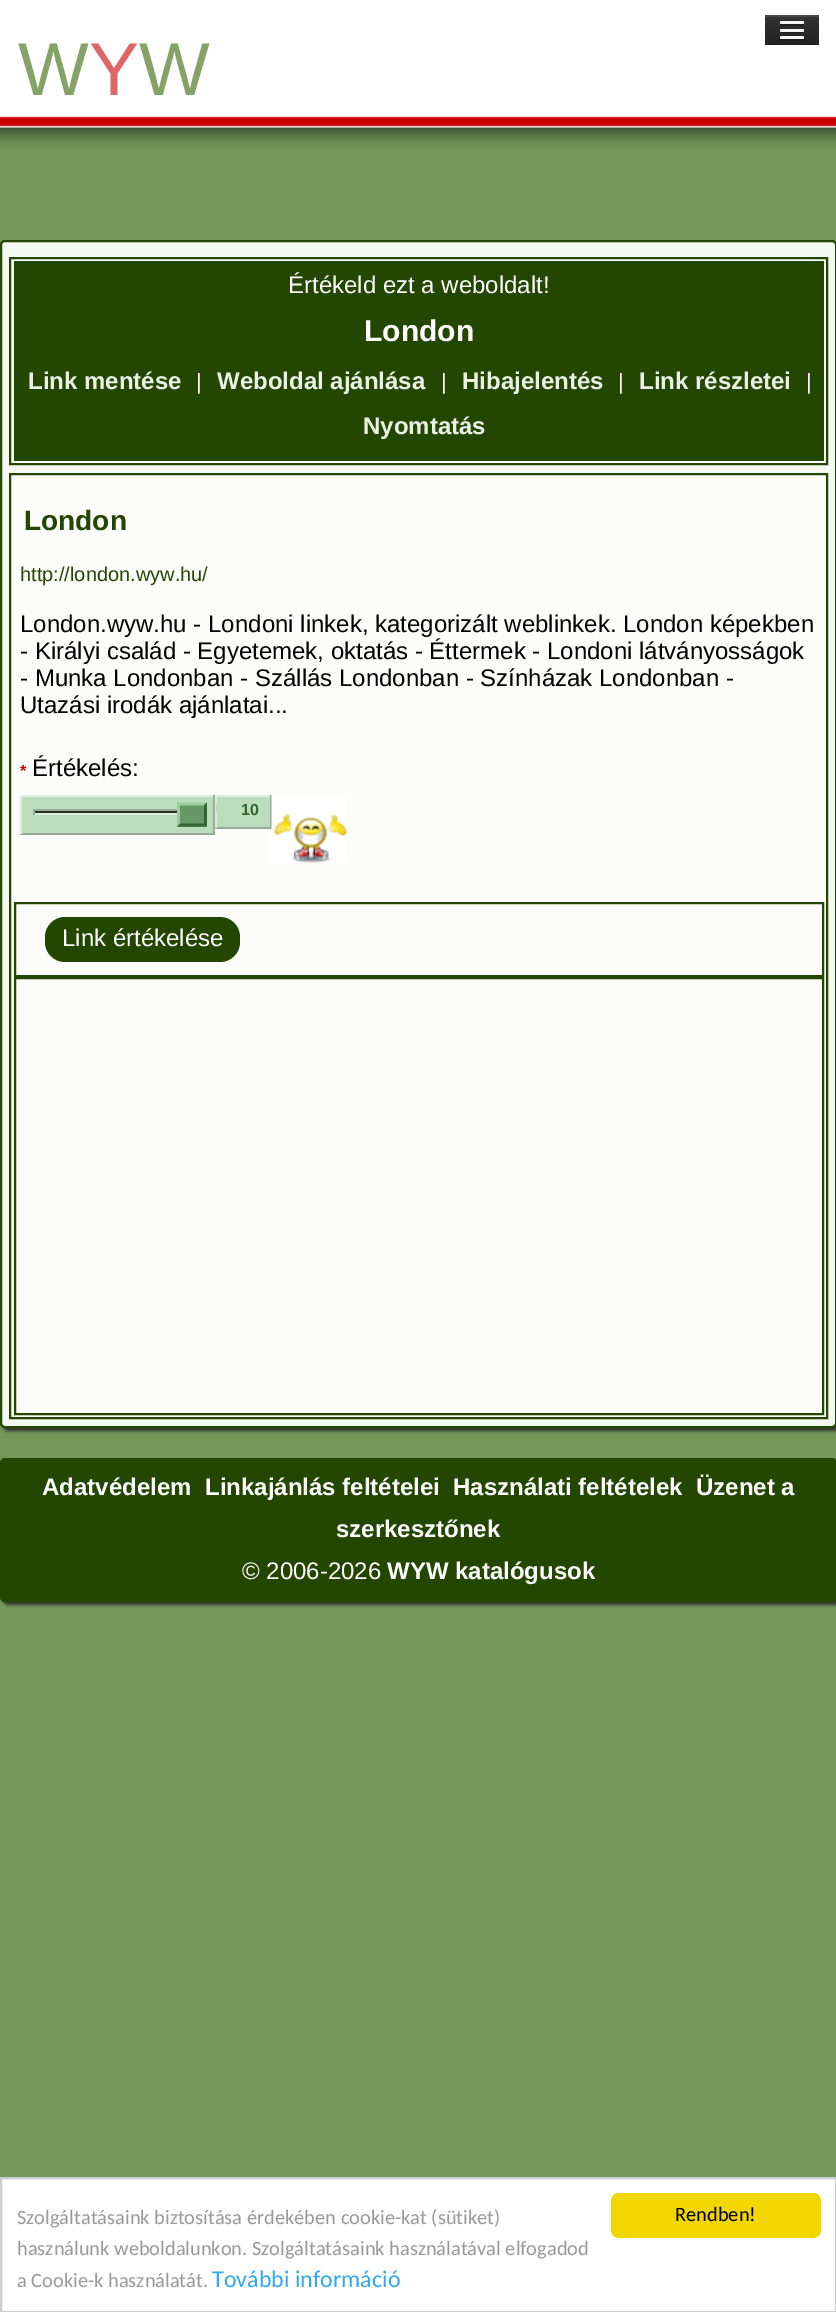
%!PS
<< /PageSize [836 2312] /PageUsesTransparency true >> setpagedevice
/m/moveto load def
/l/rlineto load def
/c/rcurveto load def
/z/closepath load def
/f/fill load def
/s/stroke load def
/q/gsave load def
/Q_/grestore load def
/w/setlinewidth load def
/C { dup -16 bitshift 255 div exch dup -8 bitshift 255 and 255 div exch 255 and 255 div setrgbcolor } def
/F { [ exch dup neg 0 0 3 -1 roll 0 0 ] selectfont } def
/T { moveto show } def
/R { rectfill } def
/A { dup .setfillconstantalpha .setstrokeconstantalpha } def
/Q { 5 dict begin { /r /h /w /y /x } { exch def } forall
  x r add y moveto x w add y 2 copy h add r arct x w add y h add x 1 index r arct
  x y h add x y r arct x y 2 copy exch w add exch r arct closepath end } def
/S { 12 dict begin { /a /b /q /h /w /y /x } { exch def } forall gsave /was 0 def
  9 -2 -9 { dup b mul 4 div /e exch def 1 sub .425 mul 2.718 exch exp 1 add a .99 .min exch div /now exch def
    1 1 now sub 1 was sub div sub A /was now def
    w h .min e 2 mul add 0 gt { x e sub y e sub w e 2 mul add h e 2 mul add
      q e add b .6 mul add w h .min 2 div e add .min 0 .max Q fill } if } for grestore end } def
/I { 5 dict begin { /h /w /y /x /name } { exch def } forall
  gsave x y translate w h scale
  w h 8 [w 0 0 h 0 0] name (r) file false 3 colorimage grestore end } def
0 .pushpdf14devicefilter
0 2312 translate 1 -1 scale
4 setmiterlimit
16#73985A C
0 0 836 2312 R
(1.rgb) 0 0 836 148 I
q 765 17 m 54 0 l 0 28 l -54 0 l z clip newpath
<< /ShadingType 2 /ColorSpace /DeviceRGB /Coords [792 15 792 45] /Extend [true true] /Function << /FunctionType 2 /Domain [0 1] /C0 [.2 .2 .2] /C1 [.133 .133 .133] /N 1 >> >> shfill Q_
16#474747 C
765 15 54 2 R
16#222222 C
780.5 23.5 m -1 1 -.5 2 .5 2.5 c 22 0 l 1 -.5 1.5 -1.5 .5 -2.5 c -1 .5 l -21 0 l z f
16#F5F5F5 C
780 21 24 3 1.5 Q f
16#1F1F1F C
780 30.5 m -1.5 3 4.5 2.5 5 2.5 c 14 0 l .5 0 6.5 .5 5 -2.5 c -.5 .5 -1 1 -1.5 1 c -21 0 l -.5 0 -1 -.5 -1.5 -1 c z f
16#F5F5F5 C
780 29 24 3 1.5 Q f
16#1C1C1C C
780.5 38.5 m -1 1 -.5 2 .5 2.5 c 22 0 l 1 -.5 1.5 -1.5 .5 -2.5 c -1 .5 l -21 0 l z f
16#F5F5F5 C
780 36 24 3 1.5 Q f
/LiberationSans-Regular 75 F
16#85A366 C
(W) 18 95 T
16#E06666 C
(Y) 89 95 T
16#85A366 C
(W) 139 95 T
16#333333 C
3 243 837 1188 5 1.5 1 S
16#F3F8F1 C
1 241 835 1186 4 Q q f Q_
16#234600 C
2 w
s
16#FCFDFB C
10 258 m 817 0 l 0 206 l -817 0 l z q f Q_
16#234600 C
s
14 261 810 200 R
/LiberationSans-Regular 24 F
16#FFFFFF C
(Értékeld ezt a weboldalt!) 288 293 T
/LiberationSans-Bold 30 F
(London) 364 341 T
/LiberationSans-Bold 24 F
16#EAF0E6 C
(Link mentése) 28 389 T
/LiberationSans-Regular 22 F
16#FFFFFF C
(|) 196 389 T
/LiberationSans-Bold 24 F
16#EAF0E6 C
(Weboldal ajánlása) 217 389 T
/LiberationSans-Regular 22 F
16#FFFFFF C
(|) 441 389 T
/LiberationSans-Bold 24 F
16#EAF0E6 C
(Hibajelentés) 462 389 T
/LiberationSans-Regular 22 F
16#FFFFFF C
(|) 618 389 T
/LiberationSans-Bold 24 F
16#EAF0E6 C
(Link részletei) 639 389 T
/LiberationSans-Regular 22 F
16#FFFFFF C
(|) 806 389 T
/LiberationSans-Bold 24 F
16#EAF0E6 C
(Nyomtatás) 363 434 T
16#FCFDFB C
10 474 m 817 0 l 0 944 l -817 0 l z q f Q_
16#234600 C
s
/LiberationSans-Bold 28 F
(London) 24 530 T
/LiberationSans-Regular 20 F
(http://london.wyw.hu/) 20 581 T
/LiberationSans-Regular 24 F
16#000000 C
(London.wyw.hu - Londoni linkek, kategorizált weblinkek. London képekben) 20 632 T
(- Királyi család - Egyetemek, oktatás - Éttermek - Londoni látványosságok) 20 659 T
(- Munka Londonban - Szállás Londonban - Színházak Londonban -) 20 686 T
(Utazási irodák ajánlatai...) 20 713 T
/LiberationSans-Bold 16 F
16#CC0000 C
(*) 20 776 T
/LiberationSans-Regular 24 F
16#000000 C
(Értékelés:) 32 776 T
16#BBDDBB C
22 797 191 36 R
16#DDEEDD C
20 795 252 2 R
16#99AA99 C
213 795 2 39 R
20 833 195 2 R
16#DDEEDD C
20 795 2 39 R
16#223322 C
33 811 144 2 R
16#99AA99 C
33 809 144 2 R
16#DDEEDD C
33 813 144 2 R
16#99AA99 C
33 809 2 6 R
16#669966 C
177 803 30 24 R
16#99CC99 C
177 802.5 m 30 0 l -3 3 l -24 0 l z f
16#336633 C
207 802.5 m 0 24 l -3 -3 l 0 -18 l z f
207 826.5 m -30 0 l 3 -3 l 24 0 l z f
16#99CC99 C
177 826.5 m 0 -24 l 3 3 l 0 18 l z f
16#BBDDBB C
217 797 53 30 R
16#99AA99 C
270 795 2 33 R
215 827 57 2 R
16#DDEEDD C
215 795 2 33 R
16#BBDDBB C
216 797 45 22 11 Q f
/LiberationSans-Bold 16 F
16#336633 C
(10) 241 815 T
(2.rgb) 271 795 76 68 I
16#234600 C
15 903 808 73 rectstroke
45 917 195 45 20 Q f
/LiberationSans-Regular 24 F
16#FFFFFF C
(Link értékelése) 62 946 T
16#234600 C
15 978 808 436 rectstroke
16#333333 C
3 1461 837 144 5 1.5 1 S
16#234600 C
1 1459 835 142 4 Q q f Q_
s
/LiberationSans-Bold 24 F
16#FFFFFF C
(Adatvédelem) 42 1495 T
(Linkajánlás feltételei) 205 1495 T
(Használati feltételek) 453 1495 T
(Üzenet a) 696 1495 T
(szerkesztőnek) 336 1537 T
/LiberationSans-Regular 24 F
(© 2006-2026) 242 1579 T
/LiberationSans-Bold 24 F
(WYW katalógusok) 387 1579 T
1 2178 m 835 0 l 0 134 l -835 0 l z q f Q_
16#CCCCCC C
s
/Carlito-Regular 20.4 F
16#999999 C
(Szolgáltatásaink biztosítása érdekében cookie-kat \(sütiket\)) 17 2224 T
(használunk weboldalunkon. Szolgáltatásaink használatával elfogadod) 17 2255 T
(a Cookie-k használatát.) 17 2287 T
/Carlito-Regular 24 F
16#31A8F0 C
(További információ) 212 2287 T
16#F1D600 C
611 2193 210 45 8 Q f
/Carlito-Regular 20.4 F
16#000000 C
(Rendben!) 675 2221 T
.poppdf14devicefilter showpage
